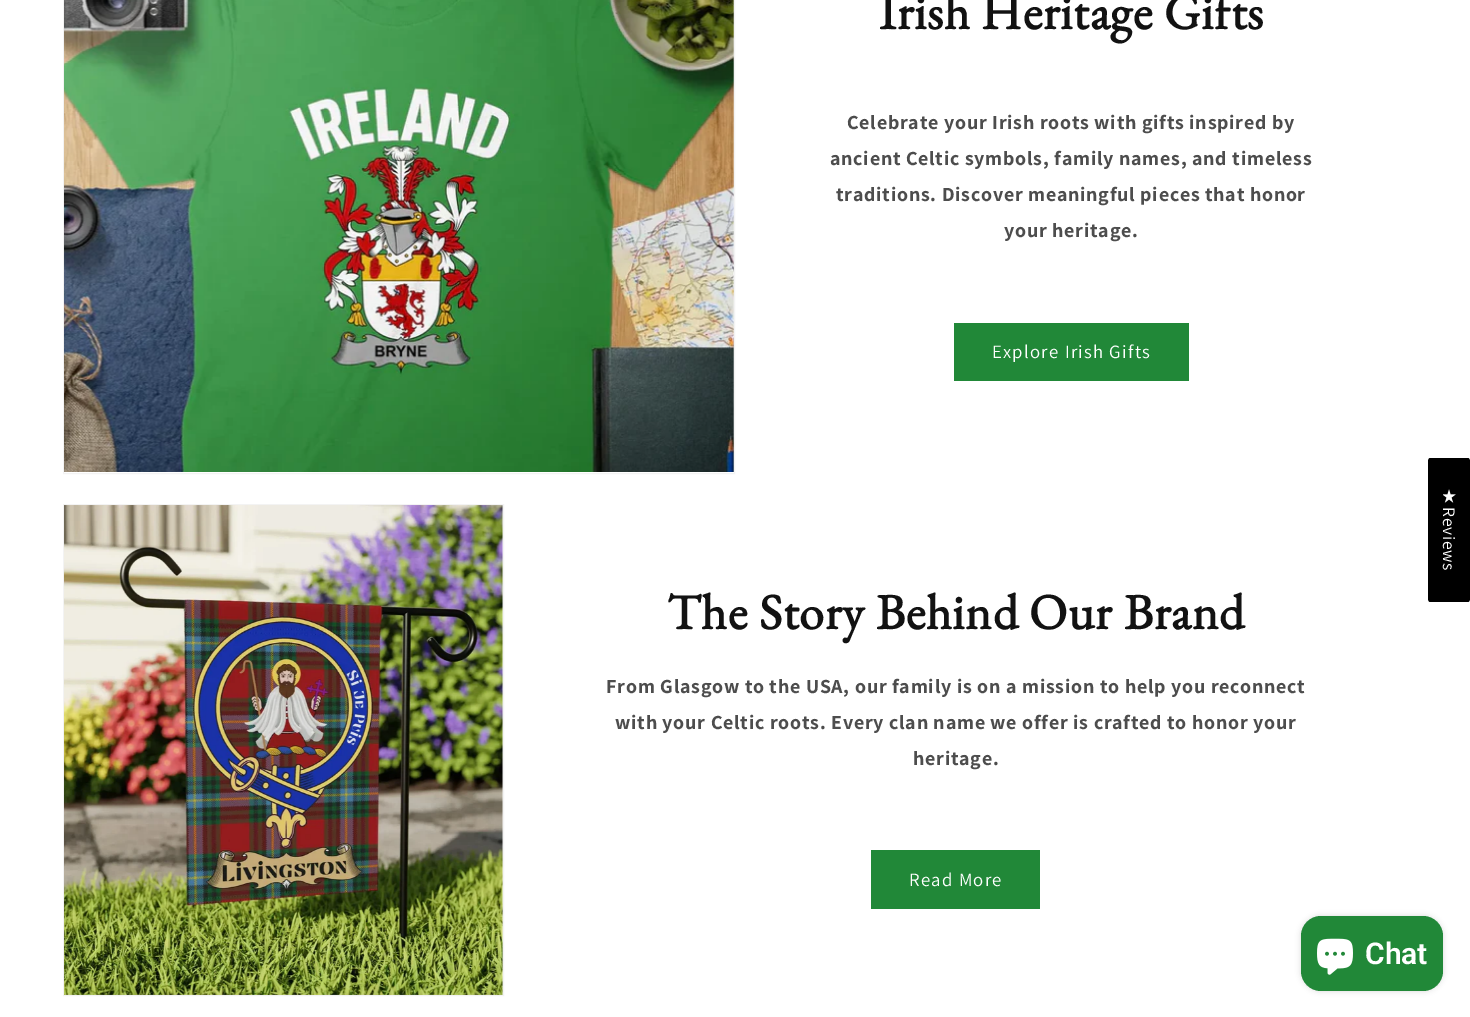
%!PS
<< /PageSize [1470 1017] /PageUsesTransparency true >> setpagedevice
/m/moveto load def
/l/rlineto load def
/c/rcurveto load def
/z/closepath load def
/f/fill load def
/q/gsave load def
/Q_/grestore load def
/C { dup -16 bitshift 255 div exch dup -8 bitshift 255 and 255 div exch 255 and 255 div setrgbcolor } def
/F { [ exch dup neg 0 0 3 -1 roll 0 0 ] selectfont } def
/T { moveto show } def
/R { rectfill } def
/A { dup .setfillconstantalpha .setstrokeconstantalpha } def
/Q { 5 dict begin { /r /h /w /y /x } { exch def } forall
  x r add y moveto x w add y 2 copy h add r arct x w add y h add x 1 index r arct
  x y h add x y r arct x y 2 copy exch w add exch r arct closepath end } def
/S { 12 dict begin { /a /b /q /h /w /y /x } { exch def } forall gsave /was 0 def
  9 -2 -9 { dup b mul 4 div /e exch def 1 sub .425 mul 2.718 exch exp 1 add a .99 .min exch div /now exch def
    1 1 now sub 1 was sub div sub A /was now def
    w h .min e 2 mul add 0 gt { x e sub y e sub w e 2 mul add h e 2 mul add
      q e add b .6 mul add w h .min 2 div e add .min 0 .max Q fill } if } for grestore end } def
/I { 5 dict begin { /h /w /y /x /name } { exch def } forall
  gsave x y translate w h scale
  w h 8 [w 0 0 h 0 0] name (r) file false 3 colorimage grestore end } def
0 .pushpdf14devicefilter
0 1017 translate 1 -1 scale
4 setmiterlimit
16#FFFFFF C
0 0 1470 1017 R
16#F3F3F3 C
63.5 -.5 671 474 rectstroke
(1.rgb) 64 0 670 472 I
/EBGaramond-Bold 50 F
16#121212 C
879 29 m .75 0 (Irish Heritage Gifts) ashow
/Assistant-Bold 20 F
16#4D4D4D C
847 129 m .75 0 (Celebrate your Irish roots with gifts inspired by) ashow
830 165 m .75 0 (ancient Celtic symbols, family names, and timeless) ashow
836 201 m .75 0 (traditions. Discover meaningful pieces that honor) ashow
1004 237 m .75 0 (your heritage.) ashow
16#218838 C
954 323 235 58 R
/Assistant-Regular 18.75 F
16#FFFFFF C
992 358 m 1.25 0 (Explore Irish Gifts) ashow
16#F3F3F3 C
63.5 504.5 440 491 rectstroke
(2.rgb) 64 505 439 490 I
/EBGaramond-Bold 50 F
16#121212 C
667 629 m .75 0 (The Story Behind Our Brand) ashow
/Assistant-Bold 20 F
16#4D4D4D C
606 693 m .75 0 (From Glasgow to the USA, our family is on a mission to help you reconnect) ashow
615 729 m .75 0 (with your Celtic roots. Every clan name we offer is crafted to honor your) ashow
913 765 m .75 0 (heritage.) ashow
16#218838 C
871 850 169 59 R
/Assistant-Regular 18.75 F
16#FFFFFF C
909 886 m 1.25 0 (Read More) ashow
16#000000 C
1470 461 m 0 138 l 0 1 -1 3 -2 3 c -38 0 l -1 0 -2 -2 -2 -3 c 0 -138 l 0 -1 1 -3 2 -3 c 38 0 l 1 0 2 2 2 3 c z f
(3.rgb) 1443 489 13 14 I
/Assistant-Regular 17.5 F
16#FFFFFF C
q 1443 507 translate 90 rotate 0 0 m .75 0 (Reviews) ashow Q_
16#000000 C
1301 916 142 75 20 3 .15 S
16#218838 C
1301 916 142 75 20 Q f
(4.rgb) 1317 938 36 37 I
/Roboto-SemiBold 30 F
16#FFFFFF C
(Chat) 1365 964 T
.poppdf14devicefilter showpage
